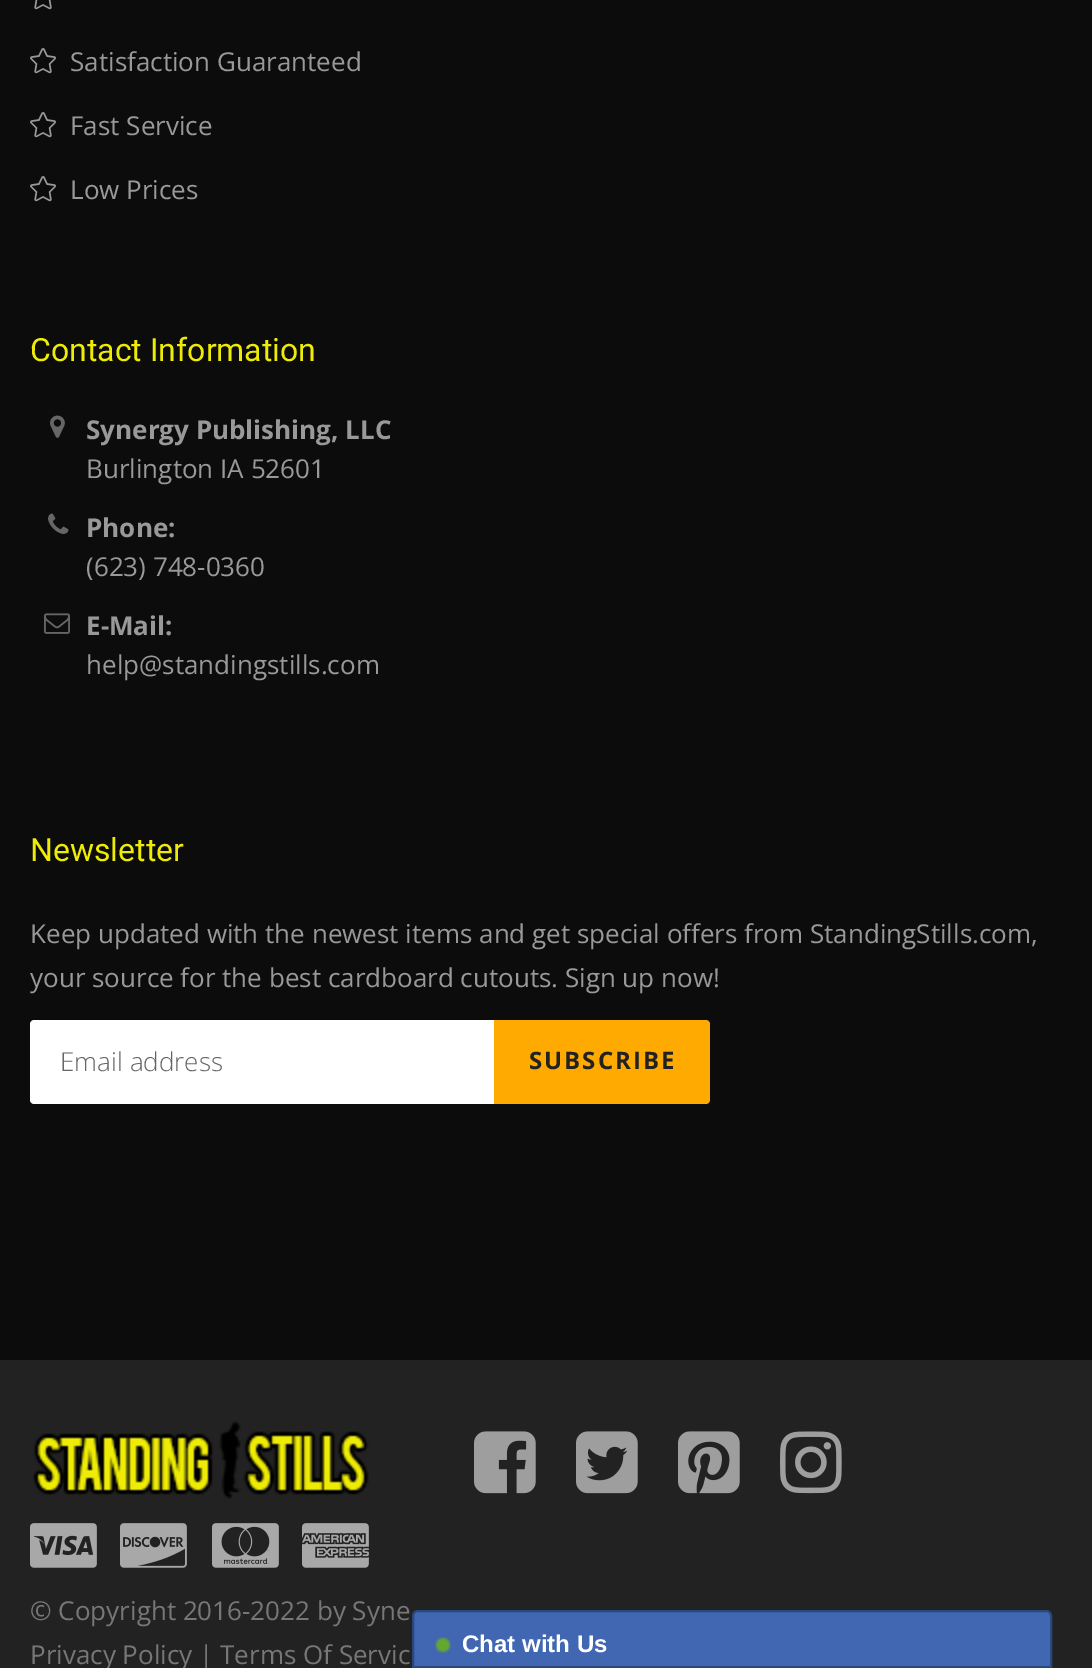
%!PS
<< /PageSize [1092 1668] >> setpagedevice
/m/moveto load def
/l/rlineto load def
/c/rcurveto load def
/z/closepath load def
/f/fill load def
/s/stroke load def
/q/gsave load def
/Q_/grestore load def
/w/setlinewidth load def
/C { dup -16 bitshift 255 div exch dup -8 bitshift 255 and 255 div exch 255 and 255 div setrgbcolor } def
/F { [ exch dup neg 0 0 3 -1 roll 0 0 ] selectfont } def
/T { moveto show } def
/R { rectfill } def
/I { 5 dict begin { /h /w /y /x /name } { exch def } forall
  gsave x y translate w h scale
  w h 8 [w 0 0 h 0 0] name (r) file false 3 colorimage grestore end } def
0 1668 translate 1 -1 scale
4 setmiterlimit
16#0C0C0C C
0 0 1092 1668 R
(1.rgb) 34 0 18 10 I
(2.rgb) 30 48 26 26 I
/OpenSans-Regular 26 F
16#999999 C
(Satisfaction Guaranteed) 70 71 T
(2.rgb) 30 112 26 26 I
(Fast Service) 70 135 T
(2.rgb) 30 176 26 26 I
(Low Prices) 70 199 T
/Roboto-Regular 32 F
16#EEEB05 C
(Contact Information) 30 361 T
(3.rgb) 50 415 15 23 I
/OpenSans-Bold 26 F
16#999999 C
(Synergy Publishing, LLC) 86 439 T
/OpenSans-Regular 26 F
(Burlington IA 52601) 86 478 T
(4.rgb) 48 513 21 21 I
/OpenSans-Bold 26 F
(Phone:) 86 537 T
/OpenSans-Regular 26 F
(\(623\) 748-0360) 86 576 T
(5.rgb) 44 613 26 21 I
/OpenSans-Bold 26 F
(E-Mail:) 86 635 T
/OpenSans-Regular 26 F
(help@standingstills.com) 86 674 T
/Roboto-Regular 32 F
16#EEEB05 C
(Newsletter) 30 861 T
/OpenSans-Regular 26 F
16#999999 C
(Keep updated with the newest items and get special offers from StandingStills.com,) 30 943 T
(your source for the best cardboard cutouts. Sign up now!) 30 987 T
16#FFFFFF C
34 1020 m 460 0 l 0 84 l -460 0 l -2 0 -4 -2 -4 -4 c 0 -76 l 0 -2 2 -4 4 -4 c z f
/OpenSans-Light 26 F
16#666666 C
(Email address) 60 1071 T
16#FFAA00 C
494 1020 m 212 0 l 2 0 4 2 4 4 c 0 76 l 0 2 -2 4 -4 4 c -212 0 l z f
/OpenSans-Bold 24 F
16#222222 C
529 1069 m 2 0 (SUBSCRIBE) ashow
0 1360 1092 308 R
(6.rgb) 33 1421 336 78 I
(7.rgb) 474 1431 62 63 I
(8.rgb) 576 1431 62 63 I
(9.rgb) 678 1431 62 63 I
(10.rgb) 780 1431 62 63 I
(11.rgb) 30 1523 67 45 I
(12.rgb) 120 1523 67 45 I
(13.rgb) 212 1523 67 45 I
(14.rgb) 302 1523 67 45 I
/OpenSans-Regular 26 F
16#777777 C
(© Copyright 2016-2022 by Syne) 30 1620 T
(Privacy Policy | Terms Of Servic) 30 1664 T
16#4267B2 C
418 1611 m 628 0 l 3 0 5 2 5 5 c 0 51 l -638 0 l 0 -51 l 0 -3 2 -5 5 -5 c z q f Q_
16#29487D C
2 w
s
(15.rgb) 435 1637 16 16 I
/LiberationSans-Bold 24 F
16#FFFFFF C
(Chat with Us) 462 1652 T
showpage
